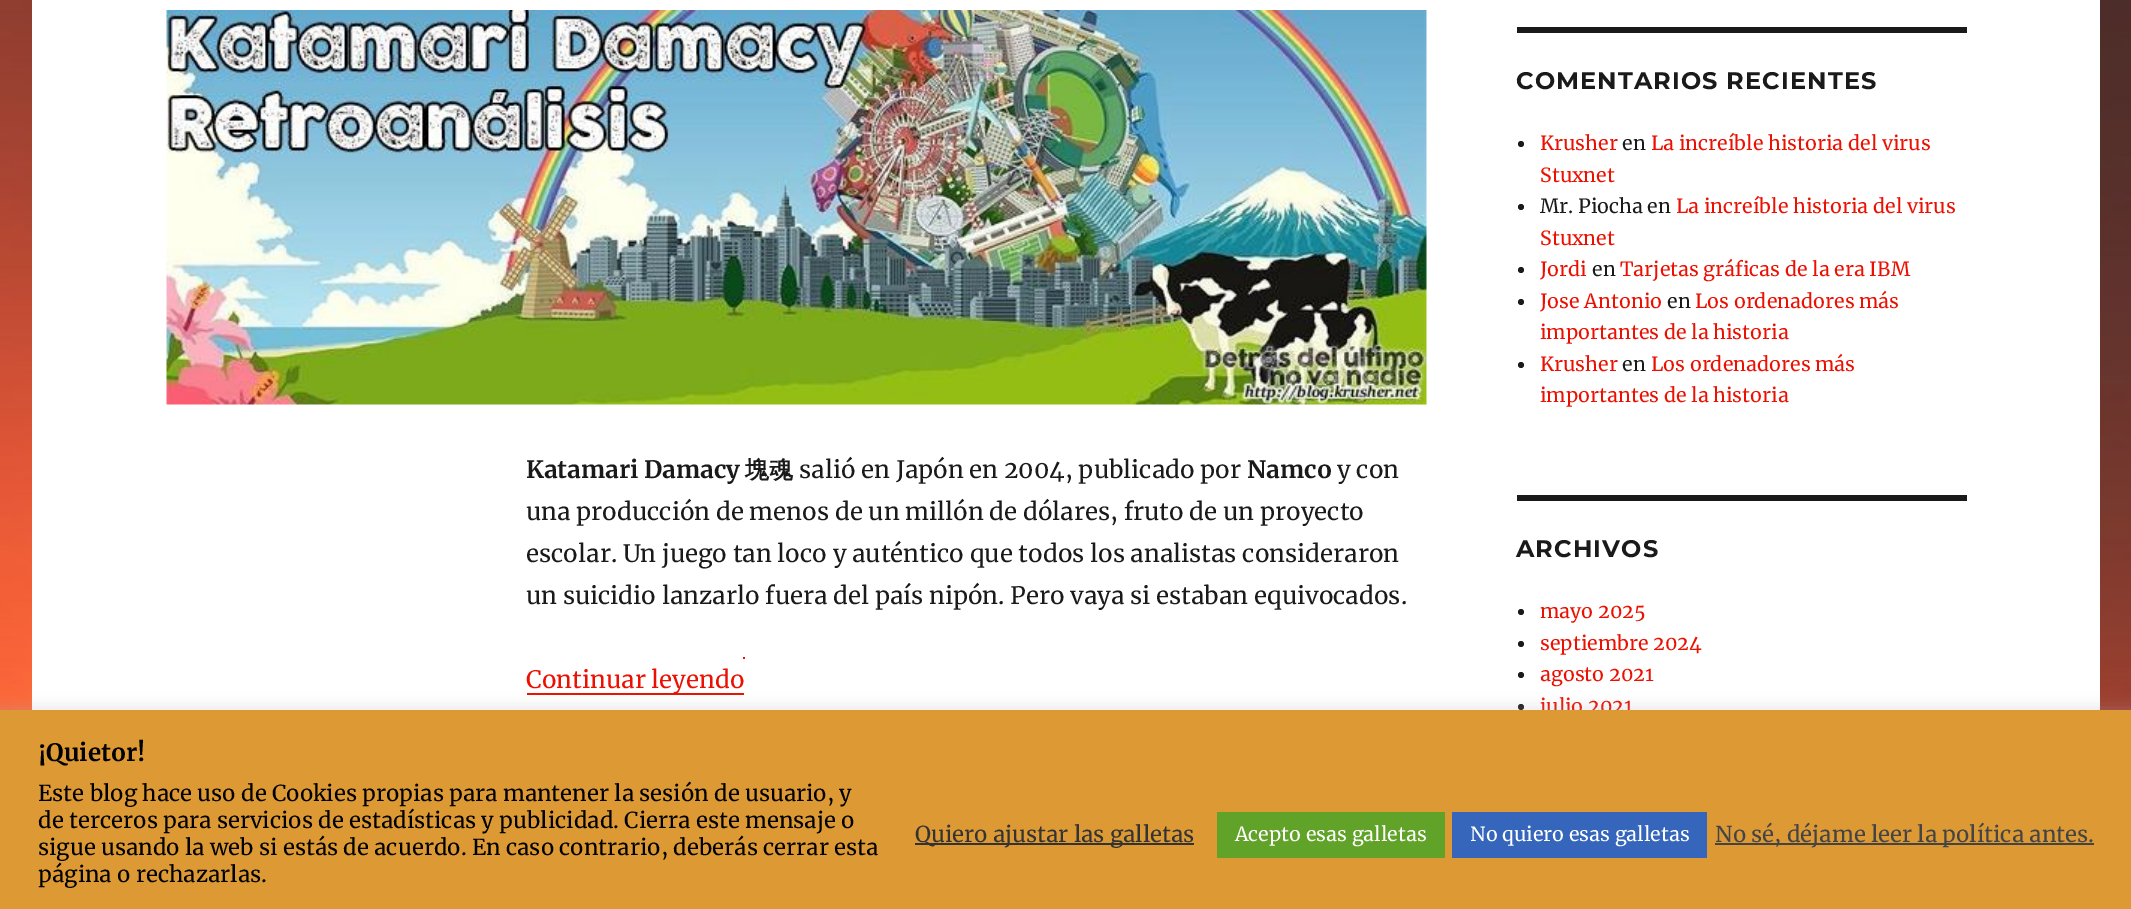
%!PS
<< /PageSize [2131 909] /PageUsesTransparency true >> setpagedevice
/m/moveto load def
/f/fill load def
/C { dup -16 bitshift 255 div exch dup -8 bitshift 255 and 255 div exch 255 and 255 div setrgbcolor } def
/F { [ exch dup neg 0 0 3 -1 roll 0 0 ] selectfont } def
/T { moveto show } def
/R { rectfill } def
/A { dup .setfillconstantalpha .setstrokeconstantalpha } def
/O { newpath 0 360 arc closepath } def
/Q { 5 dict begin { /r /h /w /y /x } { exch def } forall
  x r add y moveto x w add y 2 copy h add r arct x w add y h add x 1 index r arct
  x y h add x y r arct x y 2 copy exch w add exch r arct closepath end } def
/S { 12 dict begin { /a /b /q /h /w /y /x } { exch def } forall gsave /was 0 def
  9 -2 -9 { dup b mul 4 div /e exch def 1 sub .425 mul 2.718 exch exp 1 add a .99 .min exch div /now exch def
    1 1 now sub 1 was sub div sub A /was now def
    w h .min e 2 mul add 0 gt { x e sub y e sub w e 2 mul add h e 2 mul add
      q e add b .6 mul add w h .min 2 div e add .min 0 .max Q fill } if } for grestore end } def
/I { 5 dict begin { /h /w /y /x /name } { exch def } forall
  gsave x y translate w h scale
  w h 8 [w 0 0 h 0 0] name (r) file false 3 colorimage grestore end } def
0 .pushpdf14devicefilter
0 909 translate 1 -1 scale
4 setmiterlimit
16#FFFFFF C
0 0 2131 909 R
(1.rgb) 0 0 2131 710 I
32 0 2068 710 R
(2.rgb) 166 10 1261 395 I
/Merriweather-Bold 24 F
16#1A1A1A C
(Katamari Damacy) 526 478 T
/WenQuanYiZenHei-Bold 24 F
(塊魂) 745 478 T
/Merriweather-Regular 24 F
(salió en Japón en 2004, publicado por) 799 478 T
/Merriweather-Bold 24 F
(Namco) 1247 478 T
/Merriweather-Regular 24 F
(y con) 1337 478 T
(una producción de menos de un millón de dólares, fruto de un proyecto) 526 520 T
(escolar. Un juego tan loco y auténtico que todos los analistas consideraron) 526 562 T
(un suicidio lanzarlo fuera del país nipón. Pero vaya si estaban equivocados.) 526 604 T
16#EA1102 C
527 693 217 2 R
(Continuar leyendo) 526 688 T
743 657 2 2 R
16#1A1A1A C
1517 27 450 6 R
/Montserrat-Thin 24 F
1516 89 m 1.1 0 (COMENTARIOS RECIENTES) ashow
1521 144 3 O f
/Merriweather-Regular 19.5 F
16#EA1102 C
(Krusher) 1540 150 T
16#1A1A1A C
(en) 1622 150 T
16#EA1102 C
(La increíble historia del virus) 1651 150 T
(Stuxnet) 1540 182 T
16#1A1A1A C
1521 207 3 O f
(Mr. Piocha en) 1540 213 T
16#EA1102 C
(La increíble historia del virus) 1676 213 T
(Stuxnet) 1540 245 T
16#1A1A1A C
1521 270 3 O f
16#EA1102 C
(Jordi) 1540 276 T
16#1A1A1A C
(en) 1592 276 T
16#EA1102 C
(Tarjetas gráficas de la era IBM) 1620 276 T
16#1A1A1A C
1521 302 3 O f
16#EA1102 C
(Jose Antonio) 1540 308 T
16#1A1A1A C
(en) 1667 308 T
16#EA1102 C
(Los ordenadores más) 1695 308 T
(importantes de la historia) 1540 339 T
16#1A1A1A C
1521 365 3 O f
16#EA1102 C
(Krusher) 1540 371 T
16#1A1A1A C
(en) 1622 371 T
16#EA1102 C
(Los ordenadores más) 1651 371 T
(importantes de la historia) 1540 402 T
16#1A1A1A C
1517 495 450 6 R
/Montserrat-Thin 24 F
1516 557 m 1.1 0 (ARCHIVOS) ashow
1521 612 3 O f
/Merriweather-Regular 19.5 F
16#EA1102 C
(mayo 2025) 1540 618 T
16#1A1A1A C
1521 644 3 O f
16#EA1102 C
(septiembre 2024) 1540 650 T
16#1A1A1A C
1521 675 3 O f
16#EA1102 C
(agosto 2021) 1540 681 T
16#1A1A1A C
1521 707 3 O f
16#EA1102 C
(julio 2021) 1540 713 T
16#ACABAB C
0 708 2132 200 0 7.5 .3 S
16#DD9933 C
0 710 2131 199 R
/Merriweather-Bold 24 F
16#000000 C
(¡Quietor!) 38 761 T
/Merriweather-Regular 22 F
(Este blog hace uso de Cookies propias para mantener la sesión de usuario, y) 38 801 T
(de terceros para servicios de estadísticas y publicidad. Cierra este mensaje o) 38 828 T
(sigue usando la web si estás de acuerdo. En caso contrario, deberás cerrar esta) 38 855 T
(página o rechazarlas.) 38 882 T
16#333333 C
915 843 279 2 R
(Quiero ajustar las galletas) 915 842 T
16#61A229 C
1217 812 228 46 R
/Merriweather-Regular 19.5 F
16#FFFFFF C
(Acepto esas galletas) 1235 841 T
16#3566BB C
1452 812 255 46 R
16#FFFFFF C
(No quiero esas galletas) 1470 841 T
16#444444 C
1715 843 379 2 R
/Merriweather-Regular 22 F
(No sé, déjame leer la política antes.) 1715 842 T
.poppdf14devicefilter showpage
